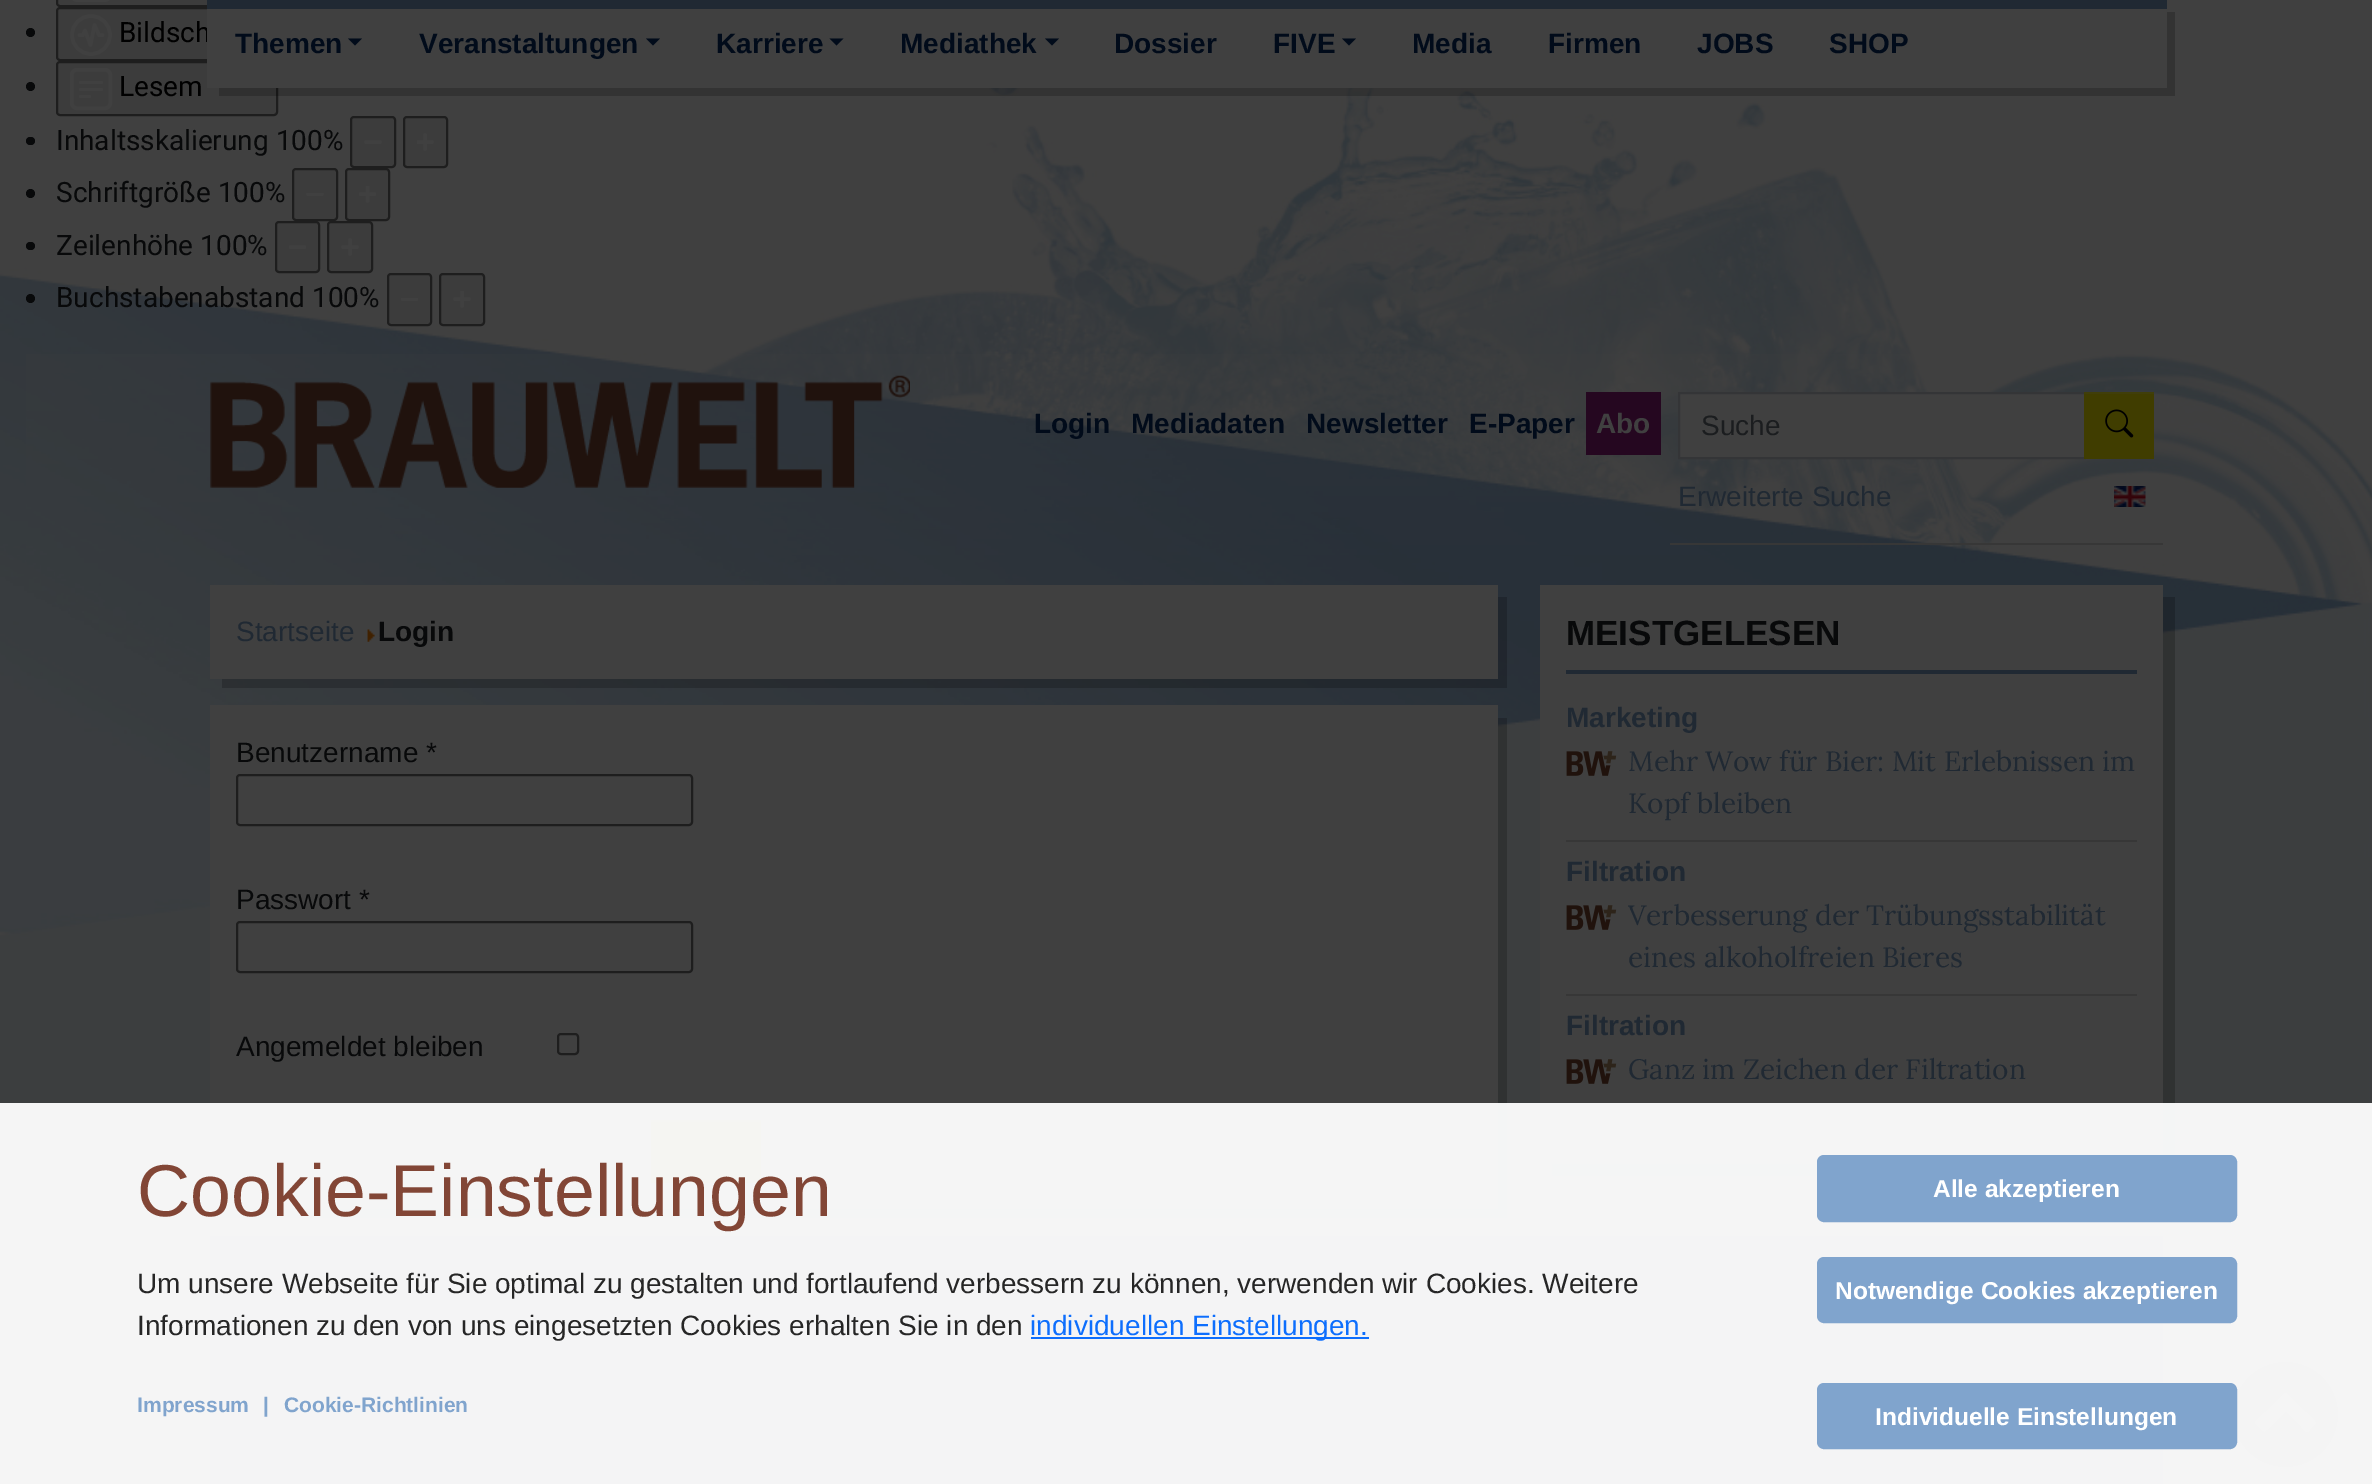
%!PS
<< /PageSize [2372 1484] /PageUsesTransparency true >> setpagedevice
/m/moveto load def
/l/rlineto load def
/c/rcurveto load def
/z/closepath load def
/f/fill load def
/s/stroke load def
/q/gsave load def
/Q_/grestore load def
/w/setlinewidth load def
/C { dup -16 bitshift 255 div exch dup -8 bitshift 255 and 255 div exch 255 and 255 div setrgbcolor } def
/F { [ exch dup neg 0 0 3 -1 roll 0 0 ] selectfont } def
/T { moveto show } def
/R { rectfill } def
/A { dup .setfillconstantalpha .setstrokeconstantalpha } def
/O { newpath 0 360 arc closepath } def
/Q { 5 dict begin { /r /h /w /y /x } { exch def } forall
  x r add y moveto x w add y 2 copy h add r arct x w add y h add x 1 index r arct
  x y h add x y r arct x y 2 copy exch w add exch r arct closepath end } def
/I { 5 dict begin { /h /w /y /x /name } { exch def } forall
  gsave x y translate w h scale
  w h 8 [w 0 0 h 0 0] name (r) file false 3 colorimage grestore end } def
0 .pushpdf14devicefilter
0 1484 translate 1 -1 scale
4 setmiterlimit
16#FFFFFF C
0 0 2372 1484 R
(1.rgb) 0 0 2372 1484 I
16#3C3C3C C
57 -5 406 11 3 Q q f Q_
16#1E1E1E C
2 w
s
(2.rgb) 72 0 38 2 I
16#08090A C
30.5 32.5 4.5 O f
16#3C3C3C C
57 8 268 52 3 Q q f Q_
16#1E1E1E C
s
16#404040 C
3.5 w
91 35 19 O s
/Roboto-Regular 28 F
16#000000 C
(Bildsch) 119 42 T
16#404040 C
1 setlinecap
1 setlinejoin
79.5 35 m 3.5 0 l 2 -4.5 l 5.5 14.5 l 4 -20 l 4.5 10 l 3.5 0 l s
16#08090A C
30.5 86.5 4.5 O f
16#3C3C3C C
57 62 220 53 3 Q q f Q_
16#1E1E1E C
2 w
0 setlinecap
0 setlinejoin
s
16#404040 C
3.5 w
71.75 69.75 38.5 38.5 5.25 Q s
16#000000 C
(Lesem) 119 96 T
16#404040 C
79 81 24 3 1.5 Q f
79 88 24 3 1.5 Q f
79 95 12 3 1.5 Q f
16#08090A C
26 137 9 8 4 Q f
16#3C3C3C C
351 117 44 50 3 Q q f Q_
16#1E1E1E C
2 w
s
16#3C3C3C C
404 117 43 50 3 Q q f Q_
16#1E1E1E C
s
16#404040 C
3.5 w
1 setlinecap
380 142 m -14 0 l 425 135 m 0 14 l s
16#08090A C
(Inhaltsskalierung 100%) 56 150 T
q
417 133 17 18 rectclip
16#404040 C
432 142 m -14 0 l s
Q_
30.5 193.5 4.5 O f
(Schriftgröße 100%) 56 202 T
16#3C3C3C C
293 169 44 51 3 Q q f Q_
16#1E1E1E C
2 w
0 setlinecap
s
q
306 193 18 4 rectclip
16#404040 C
3.5 w
1 setlinecap
322 194 m -14 0 l s
Q_
16#3C3C3C C
346 169 43 51 3 Q q f Q_
16#1E1E1E C
s
q
359 186 17 17 rectclip
16#404040 C
3.5 w
1 setlinecap
367.5 187 m 0 14 l 374.5 194 m -14 0 l s
Q_
16#08090A C
26 242 9 8 4 Q f
(Zeilenhöhe 100%) 56 255 T
16#3C3C3C C
276 222 43 50 3 Q q f Q_
16#1E1E1E C
s
q
289 245 17 4 rectclip
16#404040 C
3.5 w
1 setlinecap
304.5 247 m -14 0 l s
Q_
16#3C3C3C C
328 222 44 50 3 Q q f Q_
16#1E1E1E C
s
16#404040 C
3.5 w
1 setlinecap
350 240 m 0 14 l 357 247 m -14 0 l s
16#08090A C
30.5 298.5 4.5 O f
(Buchstabenabstand 100%) 56 307 T
16#3C3C3C C
388 274 43 51 3 Q q f Q_
16#1E1E1E C
2 w
0 setlinecap
s
q
401 298 17 4 rectclip
16#404040 C
3.5 w
1 setlinecap
416.5 299 m -14 0 l s
Q_
16#3C3C3C C
440 274 44 51 3 Q q f Q_
16#1E1E1E C
s
q
453 291 18 17 rectclip
16#404040 C
3.5 w
1 setlinecap
462 292 m 0 14 l s
Q_
16#404040 C
3.5 w
1 setlinecap
469 299 m -14 0 l s
0.2 A
16#000000 C
219 88 m 0 8 l 1956 0 l 0 -84 l -9 0 l 0 76 l z f
1 A
16#404040 C
207 9 1960 79 R
16#202933 C
207 0 1960 9 R
/LiberationSans-Bold 28 F
16#010B1A C
(Themen) 235 53 T
348 38.5 m 14 0 l -7 7 l z f
(Veranstaltungen) 419 53 T
646 38.5 m 14 0 l -7 7 l z f
(Karriere) 716 53 T
829.5 38.5 m 14 0 l -7 7 l z f
(Mediathek) 900 53 T
1045 38.5 m 14 0 l -7 7 l z f
(Dossier) 1114 53 T
(FIVE) 1273 53 T
1342 38.5 m 14 0 l -7 7 l z f
(Media) 1412 53 T
(Firmen) 1548 53 T
(JOBS) 1697 53 T
(SHOP) 1829 53 T
(Login) 1034 433 T
(Mediadaten) 1131 433 T
(Newsletter) 1306 433 T
(E-Paper) 1469 433 T
16#250720 C
1586 392 75 63 R
16#404040 C
(Abo) 1596 433 T
16#373737 C
1670 543 493 2 R
16#404040 C
1679 393 m 406 0 l 0 65 l -406 0 l z q f Q_
16#343537 C
2 w
0 setlinecap
s
/LiberationSans-Regular 28 F
16#1B1D1F C
(Suche) 1701 435 T
16#403D00 C
2084 394 70 65 R
16#403E0A C
2084 392 70 2 R
(3.rgb) 2105 409 29 29 I
16#202933 C
(Erweiterte Suche) 1678 506 T
(4.rgb) 2114 486 32 21 I
(5.rgb) 210 375 700 113 I
0.2 A
16#000000 C
222 679 m 0 9 l 1285 0 l 0 -91 l -9 0 l 0 82 l z f
1 A
16#404040 C
210 585 1288 94 R
16#202933 C
(Startseite) 236 641 T
(6.rgb) 367 629 8 13 I
/LiberationSans-Bold 28 F
16#08090A C
(Login) 378 641 T
0.2 A
16#000000 C
222 1209 m 0 9 l 1285 0 l 0 -500 l -9 0 l 0 491 l z f
1 A
16#404040 C
210 705 1288 504 R
/LiberationSans-Regular 28 F
16#08090A C
(Benutzername *) 236 762 T
16#1E1E1E C
237 775 455 50 3 Q s
16#08090A C
(Passwort *) 236 909 T
16#1E1E1E C
237 922 455 50 3 Q s
16#08090A C
(Angemeldet bleiben) 236 1056 T
16#1E1E1E C
558 1034 20 20 3 Q s
q 236 1122 m 310 0 l 0 61 l -310 0 l z clip newpath
<< /ShadingType 2 /ColorSpace /DeviceRGB /Coords [391 1120 391 1183] /Extend [true true] /Function << /FunctionType 2 /Domain [0 1] /C0 [.224 .224 .224] /C1 [.22 .22 .22] /N 1 >> >> shfill Q_
16#3A3A3A C
236 1120 310 2 R
q 651 1122 m 110 0 l 0 61 l -110 0 l z clip newpath
<< /ShadingType 2 /ColorSpace /DeviceRGB /Coords [706 1120 706 1183] /Extend [true true] /Function << /FunctionType 2 /Domain [0 1] /C0 [.251 .243 .039] /C1 [.251 .239 0] /N 1 >> >> shfill Q_
16#403E12 C
651 1120 110 2 R
0.2 A
16#000000 C
1552 1164 m 0 12 l 623 0 l 0 -579 l -12 0 l 0 567 l z f
1 A
16#404040 C
1540 585 623 579 R
16#202933 C
1566 670 571 4 R
/LiberationSans-Bold 35 F
16#08090A C
(MEISTGELESEN) 1566 645 T
/LiberationSans-Bold 28 F
16#202933 C
(Marketing) 1566 727 T
(7.rgb) 1566 751 51 25 I
/Lora-Regular 28 F
(Mehr Wow für Bier: Mit Erlebnissen im) 1628 771 T
(Kopf bleiben) 1628 813 T
16#373737 C
1566 840 571 2 R
/LiberationSans-Bold 28 F
16#202933 C
(Filtration) 1566 881 T
(7.rgb) 1566 905 51 25 I
/Lora-Regular 28 F
(Verbesserung der Trübungsstabilität) 1628 925 T
(eines alkoholfreien Bieres) 1628 967 T
16#373737 C
1566 994 571 2 R
/LiberationSans-Bold 28 F
16#202933 C
(Filtration) 1566 1035 T
(7.rgb) 1566 1059 51 25 I
/Lora-Regular 28 F
(Ganz im Zeichen der Filtration) 1628 1079 T
16#333333 C
222 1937 m 0 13 l 1953 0 l 0 -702 l -12 0 l 0 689 l z f
16#202933 C
210 1236 1953 248 R
16#252525 C
2285.5 1414.5 52.5 O f
16#404040 C
2315 1424 m -7 8 l -1 0 -2 0 -2 0 c -20 -21 l -17 17 l -4 3 -4 5 -7 2 c -5 -5 l -4 -3 -1 -4 3 -8 c 19 -18 l 7 -8 6 -8 13 0 c 19 18 l 2 2 6 5 4 7 c z f
0.95 A
16#FFFFFF C
0 1103 2372 381 R
/LiberationSans-Regular 73.5 F
1 A
16#824636 C
(Cookie-Einstellungen) 137 1216 T
/LiberationSans-Regular 28 F
16#262626 C
(Um unsere Webseite für Sie optimal zu gestalten und fortlaufend verbessern zu können, verwenden wir Cookies. Weitere) 137 1293 T
(Informationen zu den von uns eingesetzten Cookies erhalten Sie in den) 137 1335 T
16#0D6EFD C
1031 1337 338 2 R
(individuellen Einstellungen.) 1030 1335 T
16#80A4CD C
1819 1157 416 63 5 Q q f Q_
4 w
s
/LiberationSans-Bold 24.5 F
16#FFFFFF C
(Alle akzeptieren) 1933 1197 T
16#80A4CD C
1819 1259 416 62 5 Q q f Q_
s
16#FFFFFF C
(Notwendige Cookies akzeptieren) 1835 1299 T
/LiberationSans-Bold 21 F
16#80A4CD C
(Impressum) 137 1412 T
(|) 263 1412 T
(Cookie-Richtlinien) 284 1412 T
1819 1385 416 62 5 Q q f Q_
s
/LiberationSans-Bold 24.5 F
16#FFFFFF C
(Individuelle Einstellungen) 1875 1425 T
.poppdf14devicefilter showpage
